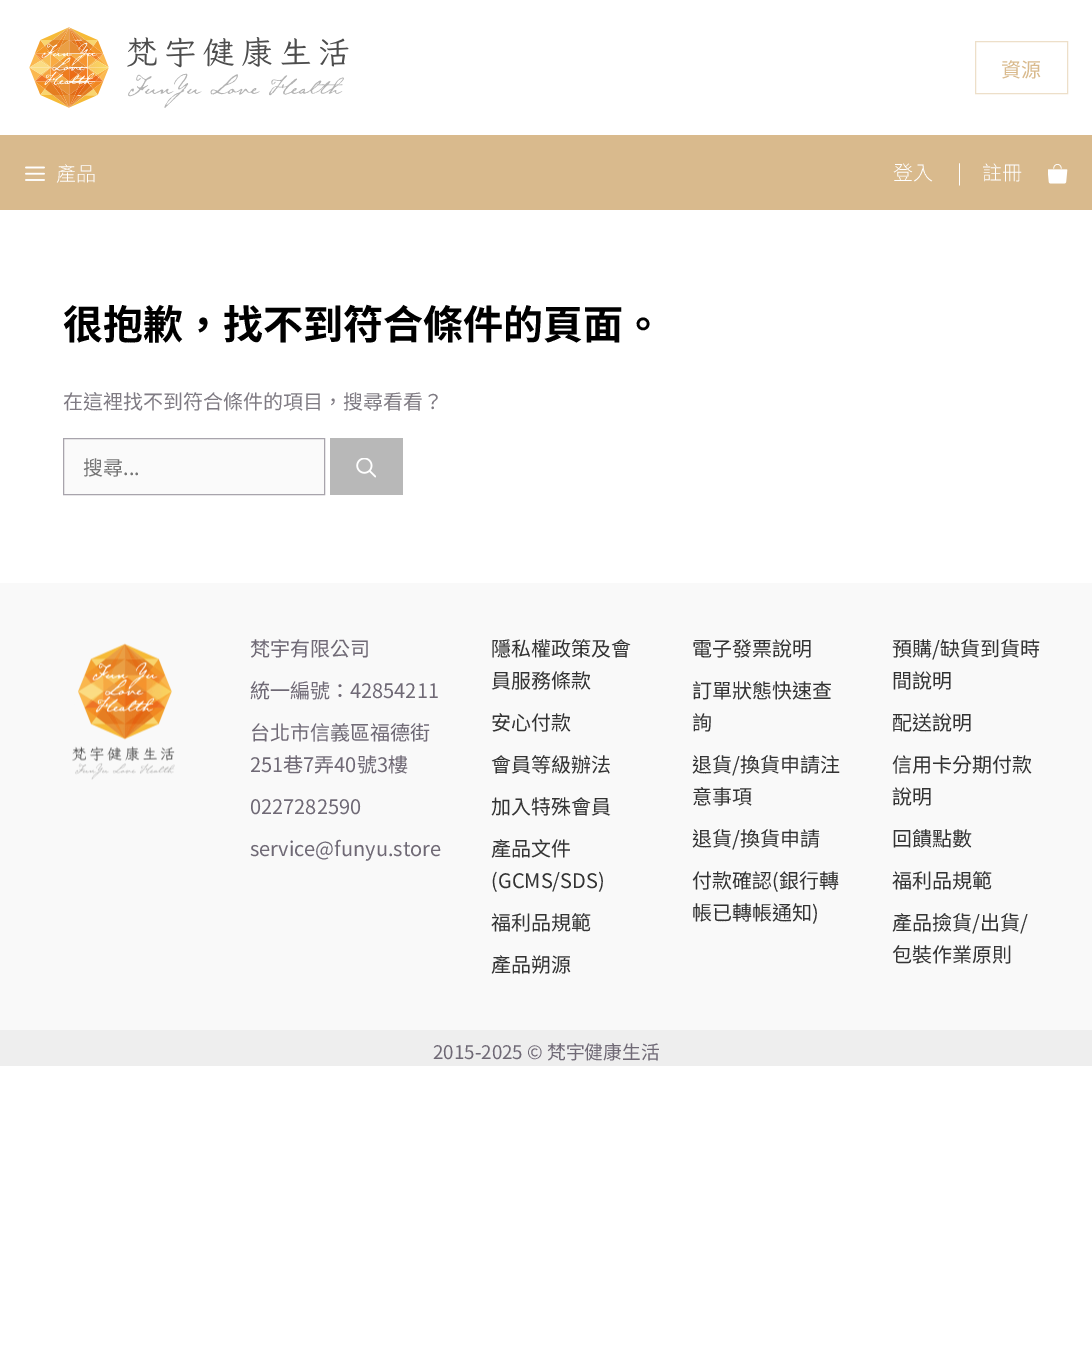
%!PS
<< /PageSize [1092 1371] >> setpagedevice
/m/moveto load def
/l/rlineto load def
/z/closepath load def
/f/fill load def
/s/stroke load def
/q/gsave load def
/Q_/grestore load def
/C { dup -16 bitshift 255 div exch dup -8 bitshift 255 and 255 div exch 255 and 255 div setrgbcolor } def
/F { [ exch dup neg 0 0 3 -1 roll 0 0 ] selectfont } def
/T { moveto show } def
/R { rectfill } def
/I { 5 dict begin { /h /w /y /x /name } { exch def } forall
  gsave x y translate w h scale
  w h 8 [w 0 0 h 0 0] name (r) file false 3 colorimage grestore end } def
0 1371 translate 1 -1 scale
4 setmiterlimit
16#FFFFFF C
0 0 1092 1371 R
(1.rgb) 29 27 320 81 I
16#EDDFC9 C
975.5 41.5 92 52 rectstroke
/NotoSansTC-Regular 20 F
16#D9BA8D C
(資源) 1001 77 T
0 135 1092 75 R
(2.rgb) 25 166 20 15 I
/NotoSansTC-Light 20 F
16#FFFFFF C
(產品) 56 181 T
(登入) 893 180 T
(|) 957 180 T
(註冊) 982 180 T
(3.rgb) 1048 164 20 20 I
/NotoSansTC-Bold 40 F
16#000000 C
(很抱歉，找不到符合條件的頁面。) 63 339 T
/NotoSansTC-Regular 20 F
16#7F7B83 C
(在這裡找不到符合條件的項目，搜尋看看？) 63 409 T
16#FAFAFA C
63.5 438.5 m 261 0 l 0 56 l -261 0 l z q f Q_
16#A8A4AC C
s
16#757575 C
(搜尋...) 83 475 T
16#B8B8B8 C
330 438 73 57 R
(4.rgb) 356 458 20 20 I
16#F9F9F9 C
0 583 1092 447 R
(5.rgb) 72 643 103 137 I
16#6F6975 C
(梵宇有限公司) 250 656 T
(統一編號：42854211) 250 698 T
(台北市信義區福德街) 250 740 T
(251巷7弄40號3樓) 250 772 T
(0227282590) 250 814 T
(service@funyu.store) 250 856 T
16#333333 C
(隱私權政策及會) 491 656 T
(員服務條款) 491 688 T
(安心付款) 491 730 T
(會員等級辦法) 491 772 T
(加入特殊會員) 491 814 T
(產品文件) 491 856 T
(\(GCMS/SDS\)) 491 888 T
(福利品規範) 491 930 T
(產品朔源) 491 972 T
(電子發票說明) 692 656 T
(訂單狀態快速查) 692 698 T
(詢) 692 730 T
(退貨/換貨申請注) 692 772 T
(意事項) 692 804 T
(退貨/換貨申請) 692 846 T
(付款確認\(銀行轉) 692 888 T
(帳已轉帳通知\)) 692 920 T
(預購/缺貨到貨時) 892 656 T
(間說明) 892 688 T
(配送說明) 892 730 T
(信用卡分期付款) 892 772 T
(說明) 892 804 T
(回饋點數) 892 846 T
(福利品規範) 892 888 T
(產品撿貨/出貨/) 892 930 T
(包裝作業原則) 892 962 T
16#EEEEEE C
0 1030 1092 36 R
/NotoSansTC-Regular 18.75 F
16#6F6975 C
(2015-2025 © 梵宇健康生活) 433 1059 T
showpage
